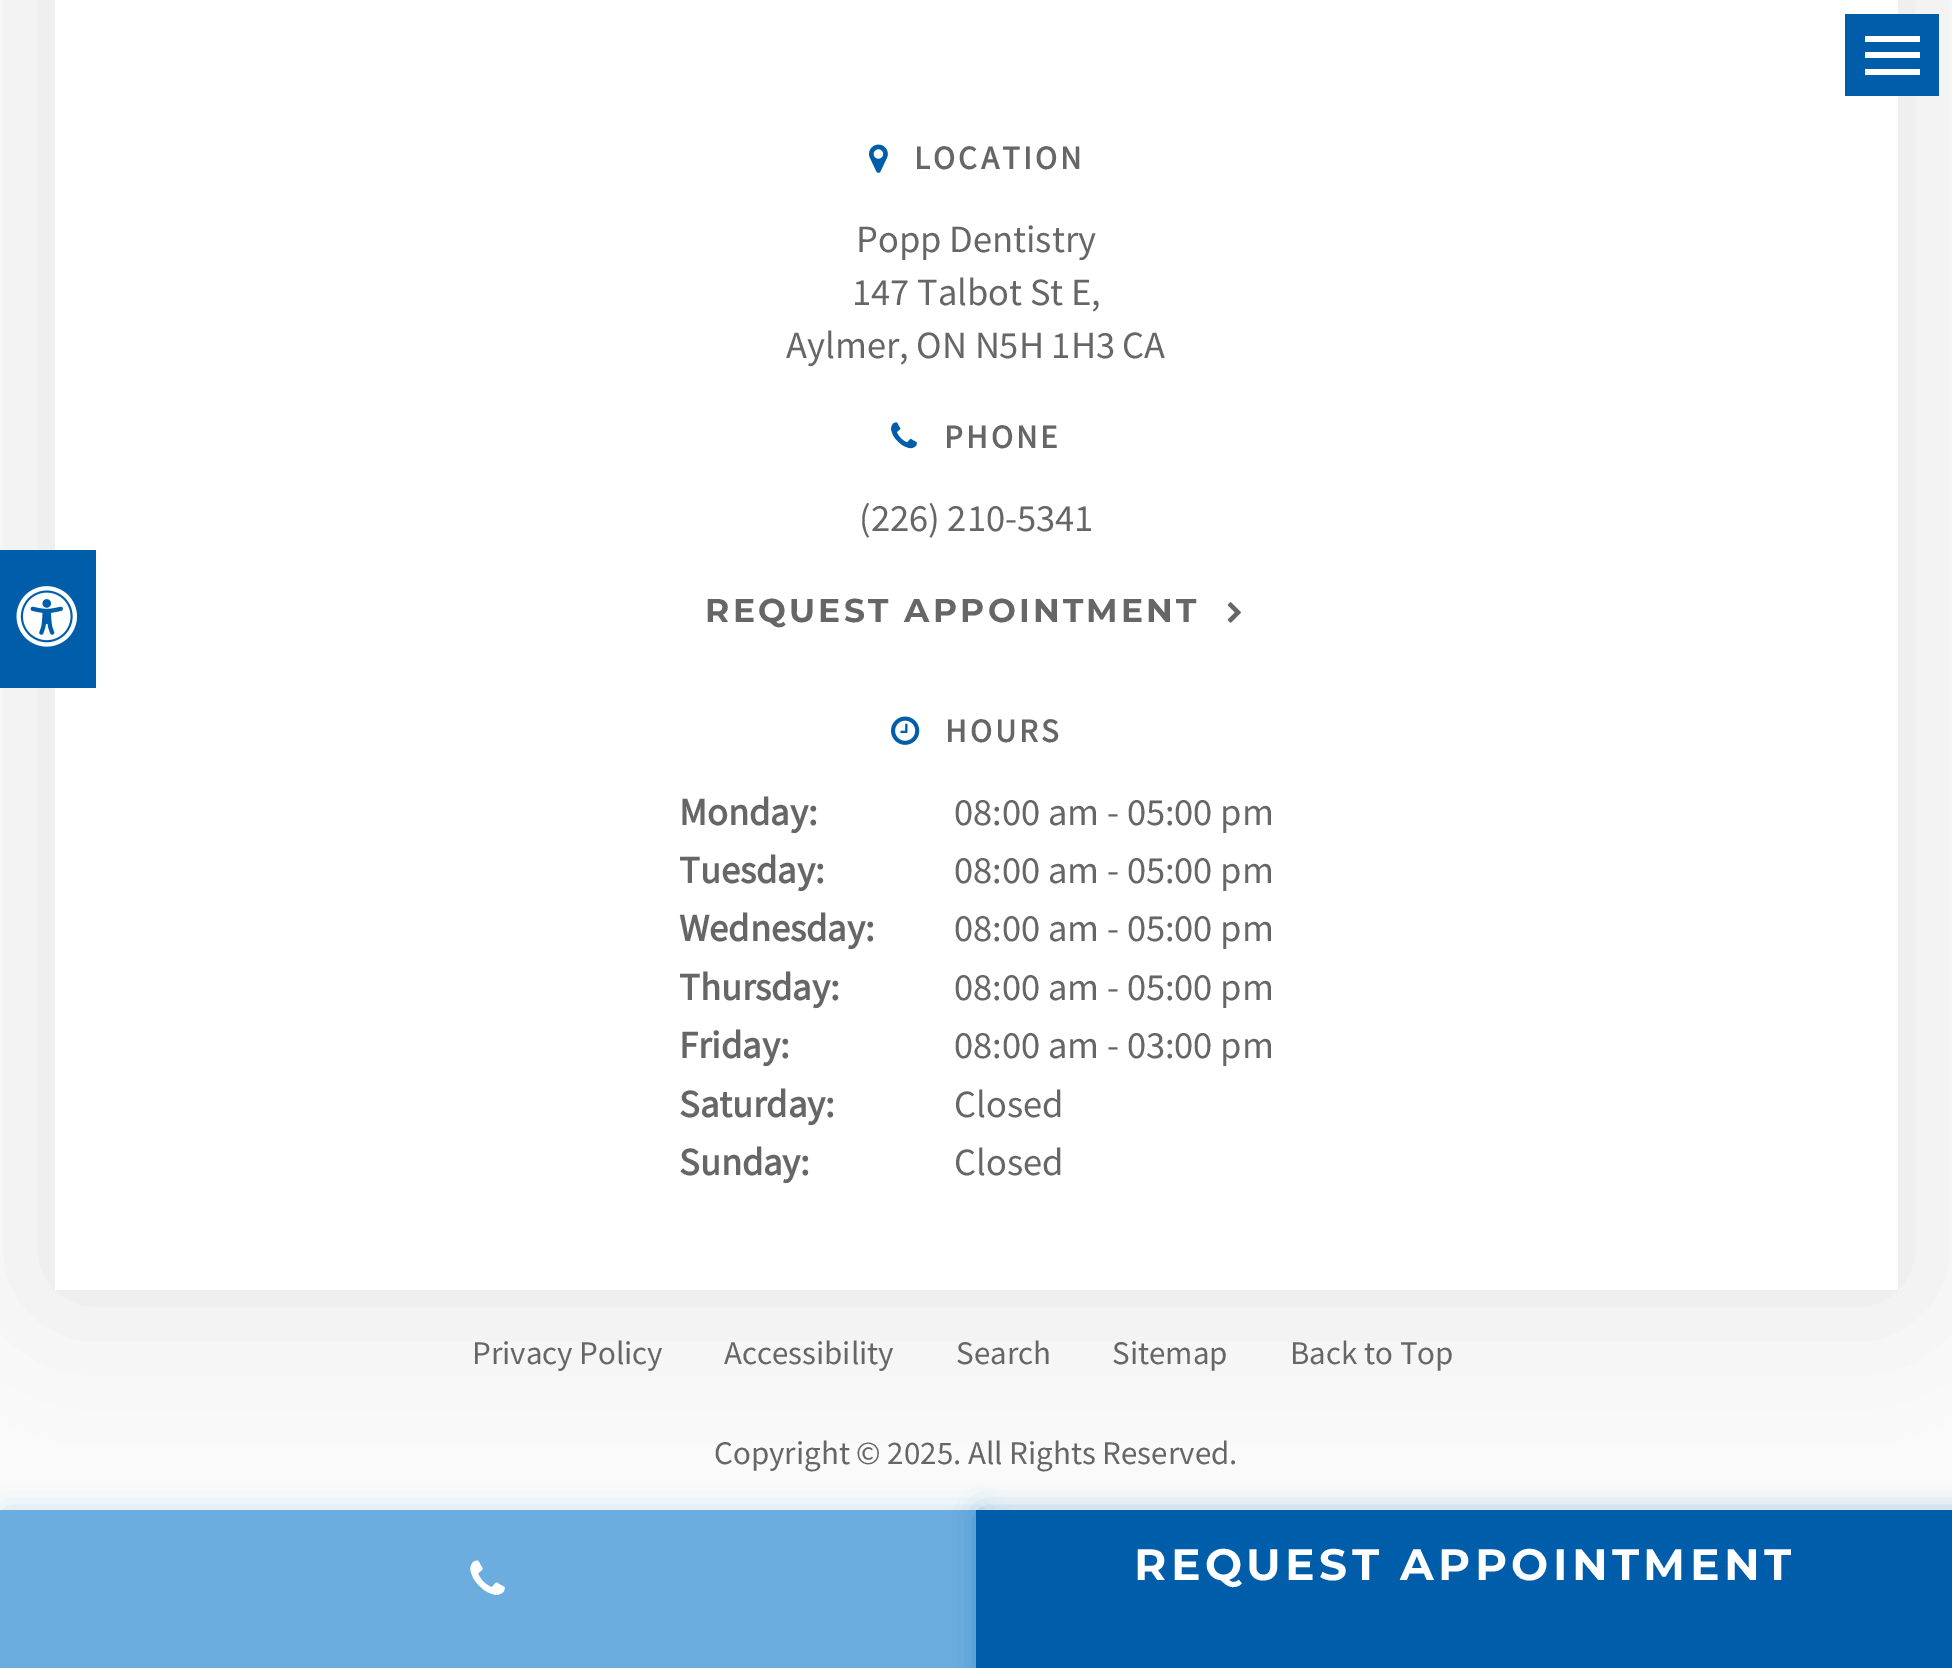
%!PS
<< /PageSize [1952 1668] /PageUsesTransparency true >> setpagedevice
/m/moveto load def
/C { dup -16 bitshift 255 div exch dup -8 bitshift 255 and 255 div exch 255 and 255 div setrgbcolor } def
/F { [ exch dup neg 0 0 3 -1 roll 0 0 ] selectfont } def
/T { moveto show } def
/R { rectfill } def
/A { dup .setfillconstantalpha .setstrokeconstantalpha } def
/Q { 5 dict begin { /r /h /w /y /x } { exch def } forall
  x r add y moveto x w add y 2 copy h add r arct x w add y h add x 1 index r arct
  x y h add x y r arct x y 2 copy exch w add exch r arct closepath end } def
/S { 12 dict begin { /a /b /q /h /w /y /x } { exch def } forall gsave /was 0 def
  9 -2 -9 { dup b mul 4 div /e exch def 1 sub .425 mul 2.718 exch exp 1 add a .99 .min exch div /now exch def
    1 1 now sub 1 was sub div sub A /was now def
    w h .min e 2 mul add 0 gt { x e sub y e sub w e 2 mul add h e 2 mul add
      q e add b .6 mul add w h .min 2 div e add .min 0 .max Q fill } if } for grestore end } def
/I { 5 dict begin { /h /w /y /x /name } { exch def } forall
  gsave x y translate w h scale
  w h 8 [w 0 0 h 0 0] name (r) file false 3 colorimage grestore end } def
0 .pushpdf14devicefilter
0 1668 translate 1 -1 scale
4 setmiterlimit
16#FAFAFA C
0 0 1952 1668 R
16#333333 C
55 -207 1843 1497 0 69 .1 S
16#FFFFFF C
55 0 1843 1290 R
16#005DAA C
1845 14 94 82 R
16#FFFFFF C
1865 36 55 6 R
1865 52 55 6 R
1865 69 55 6 R
16#005DAA C
0 550 96 138 R
(1.rgb) 16 586 61 61 I
(2.rgb) 869 144 19 29 I
/SourceSansPro-Bold 33 F
16#666666 C
914 169 m 3.25 0 (LOCATION) ashow
/SourceSansPro-Regular 38.5 F
(Popp Dentistry) 856 252 T
(147 Talbot St E,) 852 305 T
(Aylmer, ON N5H 1H3 CA) 786 358 T
(3.rgb) 891 422 26 27 I
/SourceSansPro-Bold 33 F
944 448 m 3.25 0 (PHONE) ashow
/SourceSansPro-Regular 38.5 F
(\(226\) 210-5341) 859 531 T
/Montserrat-Bold 33 F
705 622 m 3.25 0 (REQUEST APPOINTMENT) ashow
(4.rgb) 1227 602 14 21 I
(5.rgb) 891 716 29 29 I
/SourceSansPro-Bold 33 F
945 742 m 3.25 0 (HOURS) ashow
/SourceSansPro-Bold 38.5 F
(Monday:) 679 825 T
/SourceSansPro-Regular 38.5 F
(08:00 am - 05:00 pm) 954 825 T
/SourceSansPro-Bold 38.5 F
(Tuesday:) 679 883 T
/SourceSansPro-Regular 38.5 F
(08:00 am - 05:00 pm) 954 883 T
/SourceSansPro-Bold 38.5 F
(Wednesday:) 679 941 T
/SourceSansPro-Regular 38.5 F
(08:00 am - 05:00 pm) 954 941 T
/SourceSansPro-Bold 38.5 F
(Thursday:) 679 1000 T
/SourceSansPro-Regular 38.5 F
(08:00 am - 05:00 pm) 954 1000 T
/SourceSansPro-Bold 38.5 F
(Friday:) 679 1058 T
/SourceSansPro-Regular 38.5 F
(08:00 am - 03:00 pm) 954 1058 T
/SourceSansPro-Bold 38.5 F
(Saturday:) 679 1117 T
/SourceSansPro-Regular 38.5 F
(Closed) 954 1117 T
/SourceSansPro-Bold 38.5 F
(Sunday:) 679 1175 T
/SourceSansPro-Regular 38.5 F
(Closed) 954 1175 T
/SourceSansPro-Regular 33 F
(Privacy Policy) 472 1364 T
(Accessibility) 724 1364 T
(Search) 956 1364 T
(Sitemap) 1112 1364 T
(Back to Top) 1290 1364 T
(Copyright © 2025. All Rights Reserved.) 714 1464 T
16#6CADDF C
6 1515 976 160 0 14 .5 S
0 1510 976 158 R
(6.rgb) 470 1560 35 35 I
16#005DAA C
982 1515 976 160 0 14 .5 S
976 1510 976 158 R
/Montserrat-Bold 44 F
16#FFFFFF C
1134 1580 m 4.4 0 (REQUEST APPOINTMENT) ashow
.poppdf14devicefilter showpage
